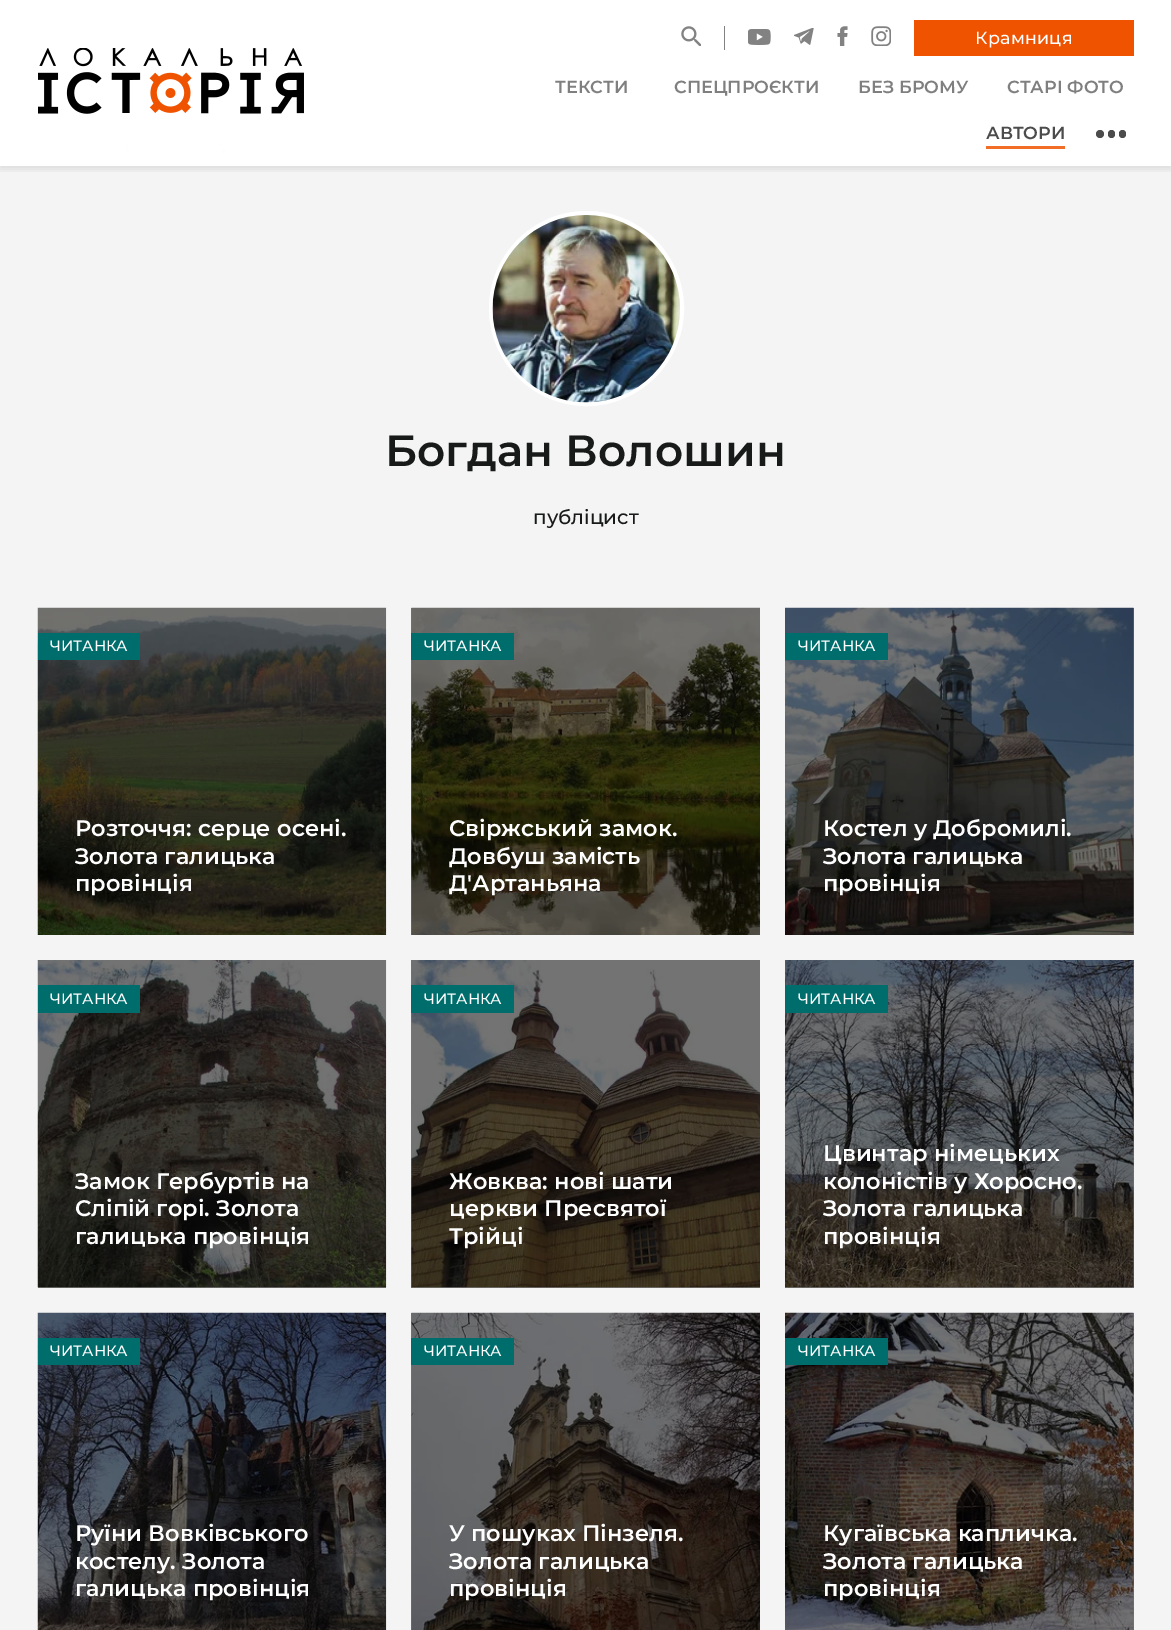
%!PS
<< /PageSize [1171 1630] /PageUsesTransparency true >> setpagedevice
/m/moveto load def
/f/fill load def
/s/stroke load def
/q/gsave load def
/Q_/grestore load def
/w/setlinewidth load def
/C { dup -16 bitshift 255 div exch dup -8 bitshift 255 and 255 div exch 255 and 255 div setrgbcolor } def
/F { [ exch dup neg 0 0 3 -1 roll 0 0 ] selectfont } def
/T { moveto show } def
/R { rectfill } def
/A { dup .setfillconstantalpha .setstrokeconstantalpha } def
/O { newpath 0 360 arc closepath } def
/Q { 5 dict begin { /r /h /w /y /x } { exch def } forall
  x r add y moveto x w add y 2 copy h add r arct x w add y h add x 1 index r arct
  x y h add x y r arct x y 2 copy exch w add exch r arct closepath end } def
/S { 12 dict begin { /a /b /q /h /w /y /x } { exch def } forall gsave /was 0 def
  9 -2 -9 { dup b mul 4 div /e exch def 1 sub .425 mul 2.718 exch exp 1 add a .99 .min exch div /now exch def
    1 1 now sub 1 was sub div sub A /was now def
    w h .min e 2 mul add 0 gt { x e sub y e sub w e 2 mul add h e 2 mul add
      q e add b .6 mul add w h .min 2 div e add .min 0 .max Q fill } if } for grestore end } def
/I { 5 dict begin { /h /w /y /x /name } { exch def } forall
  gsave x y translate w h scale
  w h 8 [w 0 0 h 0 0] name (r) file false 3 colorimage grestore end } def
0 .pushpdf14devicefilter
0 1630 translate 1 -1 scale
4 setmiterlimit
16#F4F4F4 C
0 0 1171 1630 R
16#FFFFFF C
0 0 1171 166 R
(7.rgb) 124 144 6 10 I
(8.rgb) 220 144 6 10 I
q
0 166 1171 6 rectclip
16#000000 C
0 3 1171 166 0 4 .1 S
Q_
(1.rgb) 38 48 266 66 I
16#828282 C
724 26 1 24 R
(2.rgb) 681 26 20 20 I
(3.rgb) 748 29 23 16 I
(4.rgb) 794 28 20 17 I
(5.rgb) 837 26 11 20 I
(6.rgb) 871 26 20 20 I
16#F05300 C
914 20 220 36 R
/Montserrat-Medium 17.5 F
16#FFFFFF C
975 44 m .25 0 (Крамниця) ashow
/Montserrat-SemiBold 17.5 F
16#7F7F7F C
(ТЕКСТИ) 555 93 T
(СПЕЦПРОЄКТИ) 674 93 T
(БЕЗ БРОМУ) 858 93 T
(СТАРІ ФОТО) 1007 93 T
16#4C4C4C C
(АВТОРИ) 986 139 T
16#F26D26 C
986 146 79 3 R
16#4C4C4C C
1100 134 4 O f
1108 130 7 8 3.5 Q f
1119 130 7 8 3.5 Q f
16#FFFFFF C
4 w
586.5 308.5 95.5 O s
(9.rgb) 492 215 188 188 I
/Montserrat-SemiBold 43.75 F
16#171A19 C
(Богдан Волошин) 385 466 T
/Montserrat-Medium 20 F
(публіцист) 533 524 T
(10.rgb) 37 607 350 328 I
16#006D6D C
38 633 102 27 R
/Montserrat-Medium 15 F
16#FFFFFF C
(ЧИТАНКА) 50 651 T
/Montserrat-SemiBold 22.5 F
(Розточчя: серце осені.) 75 836 T
(Золота галицька) 75 864 T
(провінція) 75 891 T
16#777777 C
411 608 1 327 R
(11.rgb) 411 607 349 328 I
16#006D6D C
411 633 103 27 R
/Montserrat-Medium 15 F
16#FFFFFF C
(ЧИТАНКА) 424 651 T
/Montserrat-SemiBold 22.5 F
(Свіржський замок.) 449 836 T
(Довбуш замість) 449 864 T
(Д'Артаньяна) 449 891 T
16#777777 C
1133 608 1 327 R
(12.rgb) 785 607 349 328 I
16#006D6D C
785 633 103 27 R
/Montserrat-Medium 15 F
16#FFFFFF C
(ЧИТАНКА) 798 651 T
/Montserrat-SemiBold 22.5 F
(Костел у Добромилі.) 823 836 T
(Золота галицька) 823 864 T
(провінція) 823 891 T
16#777777 C
38 1287 348 1 R
(13.rgb) 37 960 350 328 I
16#006D6D C
38 985 102 28 R
/Montserrat-Medium 15 F
16#FFFFFF C
(ЧИТАНКА) 50 1004 T
/Montserrat-SemiBold 22.5 F
(Замок Гербуртів на) 75 1189 T
(Сліпій горі. Золота) 75 1216 T
(галицька провінція) 75 1244 T
16#777777 C
411 960 349 328 R
(14.rgb) 411 960 349 328 I
16#006D6D C
411 985 103 28 R
/Montserrat-Medium 15 F
16#FFFFFF C
(ЧИТАНКА) 424 1004 T
/Montserrat-SemiBold 22.5 F
(Жовква: нові шати) 449 1189 T
(церкви Пресвятої) 449 1216 T
(Трійці) 449 1244 T
16#777777 C
785 960 349 328 R
(15.rgb) 785 960 349 328 I
16#006D6D C
785 985 103 28 R
/Montserrat-Medium 15 F
16#FFFFFF C
(ЧИТАНКА) 798 1004 T
/Montserrat-SemiBold 22.5 F
(Цвинтар німецьких) 823 1161 T
(колоністів у Хоросно.) 823 1189 T
(Золота галицька) 823 1216 T
(провінція) 823 1244 T
(16.rgb) 37 1312 350 318 I
16#006D6D C
38 1338 102 27 R
/Montserrat-Medium 15 F
16#FFFFFF C
(ЧИТАНКА) 50 1356 T
/Montserrat-SemiBold 22.5 F
(Руїни Вовківського) 75 1541 T
(костелу. Золота) 75 1569 T
(галицька провінція) 75 1596 T
16#777777 C
411 1313 1 317 R
(17.rgb) 411 1312 349 318 I
16#006D6D C
411 1338 103 27 R
/Montserrat-Medium 15 F
16#FFFFFF C
(ЧИТАНКА) 424 1356 T
/Montserrat-SemiBold 22.5 F
(У пошуках Пінзеля.) 449 1541 T
(Золота галицька) 449 1569 T
(провінція) 449 1596 T
16#777777 C
1133 1313 1 317 R
(18.rgb) 785 1312 349 318 I
16#006D6D C
785 1338 103 27 R
/Montserrat-Medium 15 F
16#FFFFFF C
(ЧИТАНКА) 798 1356 T
/Montserrat-SemiBold 22.5 F
(Кугаївська капличка.) 823 1541 T
(Золота галицька) 823 1569 T
(провінція) 823 1596 T
.poppdf14devicefilter showpage
